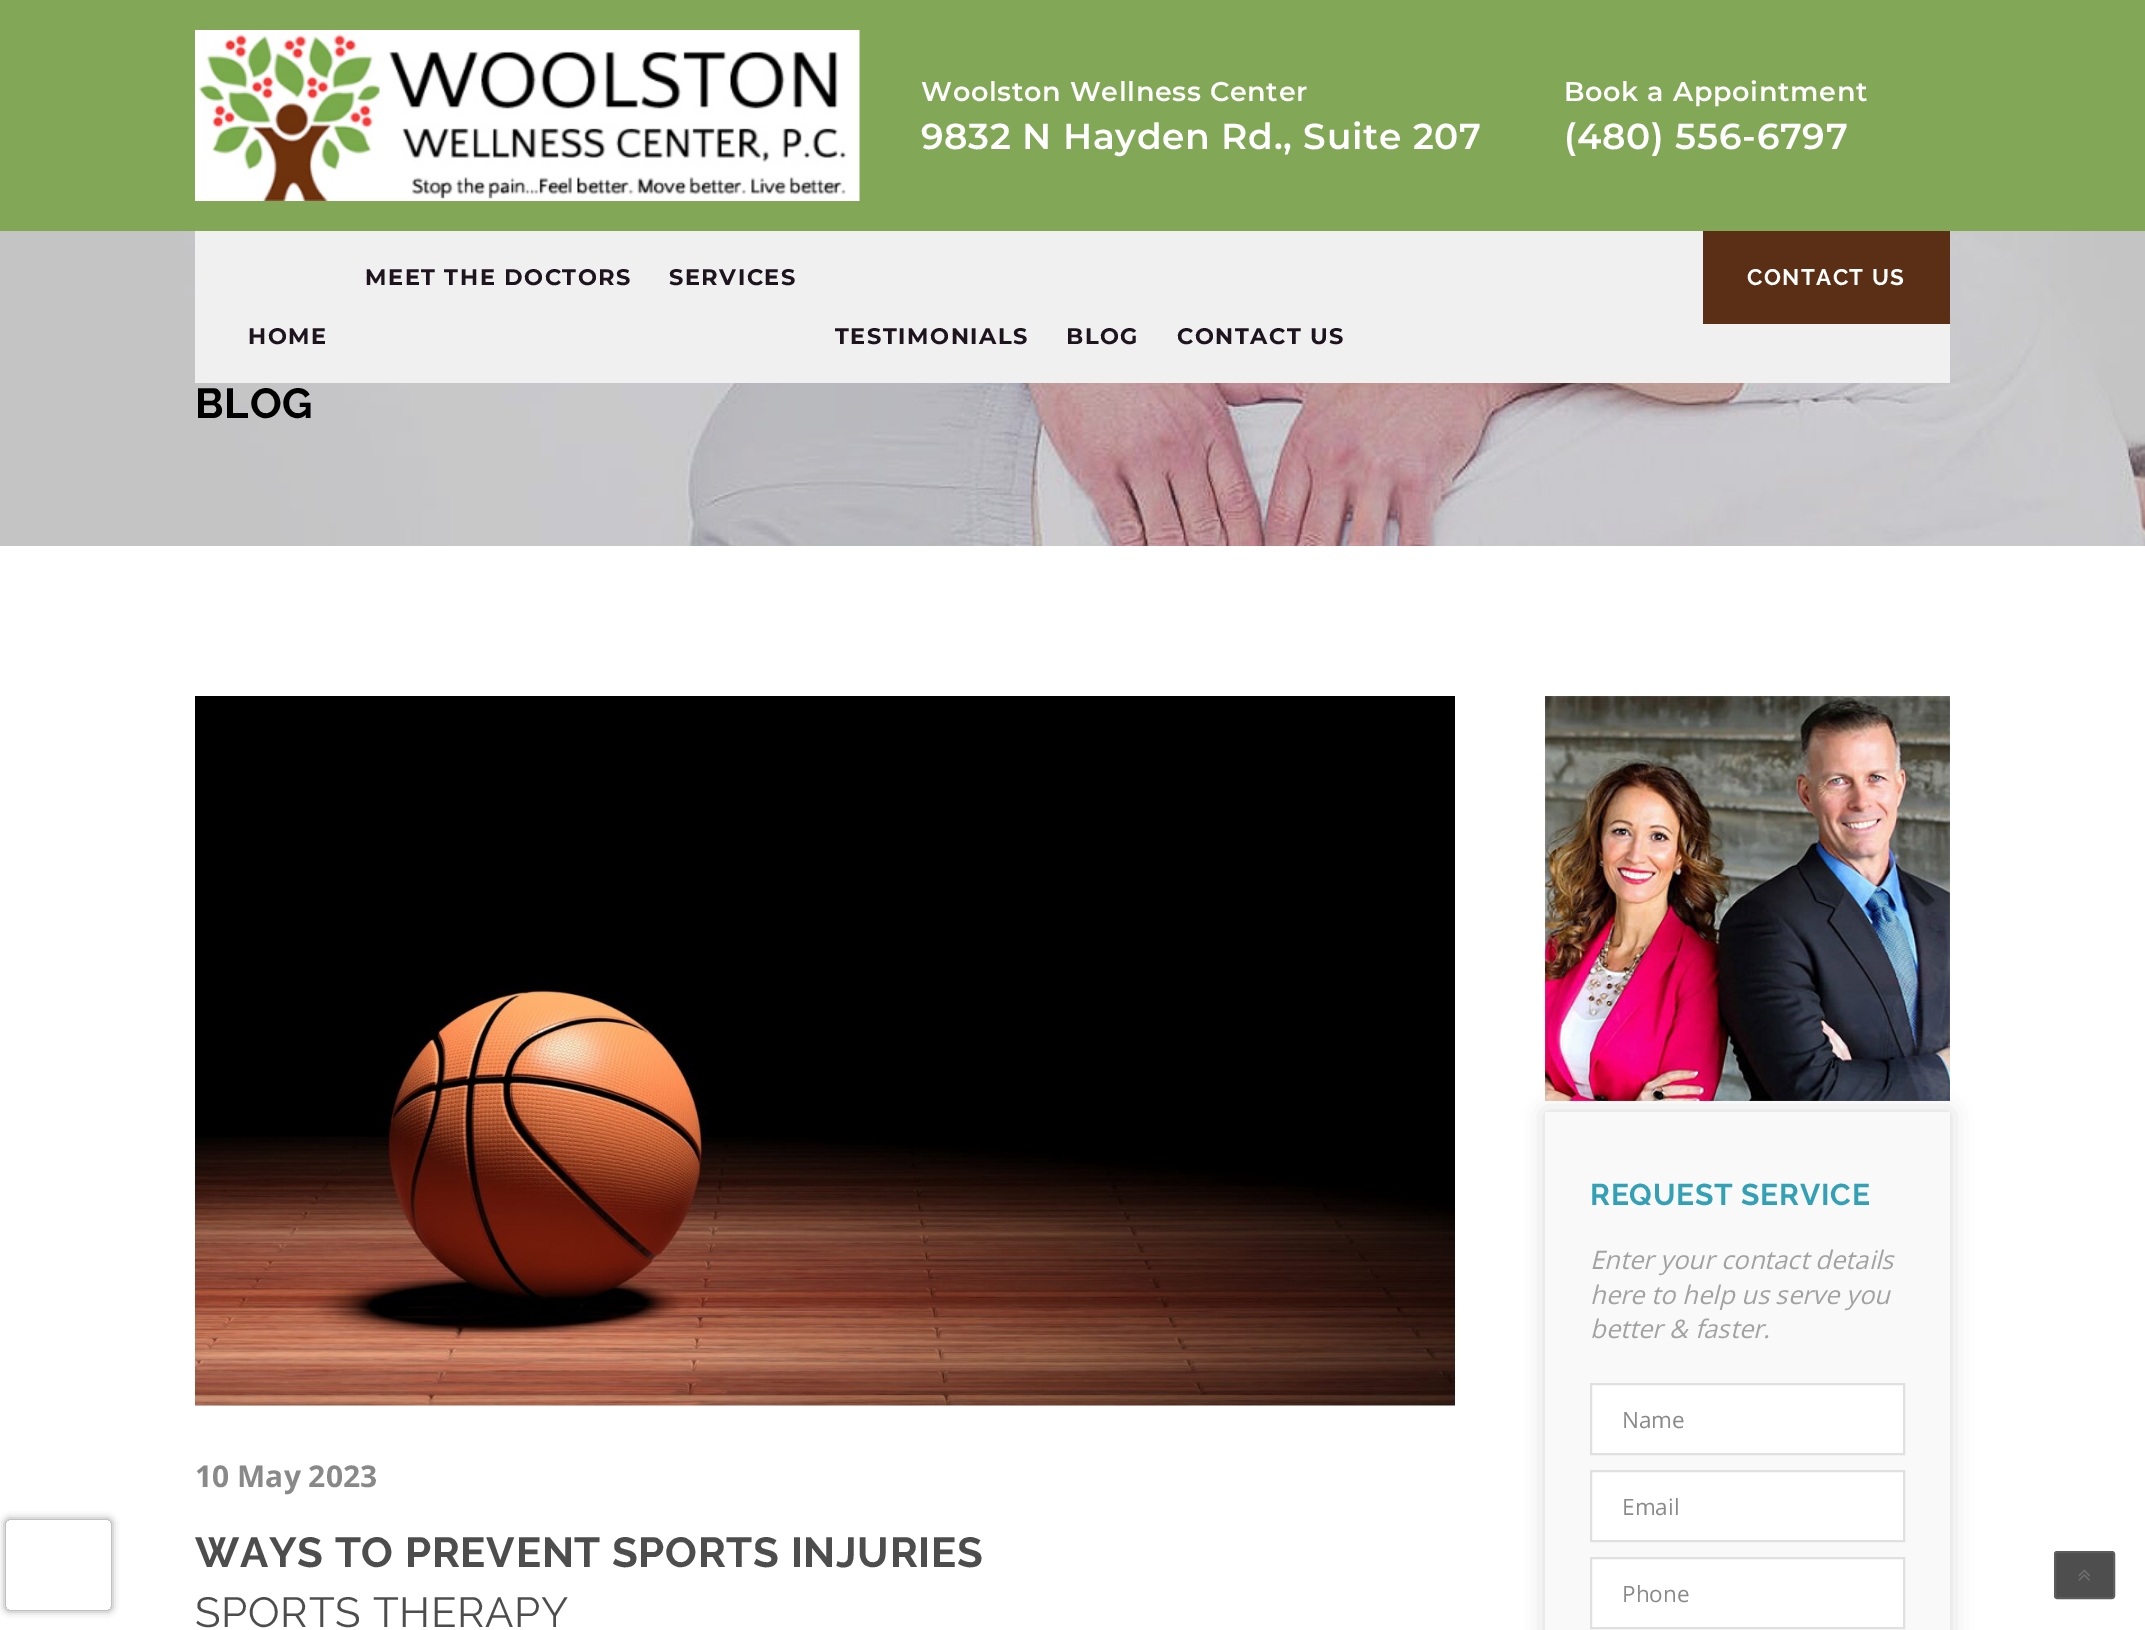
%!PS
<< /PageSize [2145 1630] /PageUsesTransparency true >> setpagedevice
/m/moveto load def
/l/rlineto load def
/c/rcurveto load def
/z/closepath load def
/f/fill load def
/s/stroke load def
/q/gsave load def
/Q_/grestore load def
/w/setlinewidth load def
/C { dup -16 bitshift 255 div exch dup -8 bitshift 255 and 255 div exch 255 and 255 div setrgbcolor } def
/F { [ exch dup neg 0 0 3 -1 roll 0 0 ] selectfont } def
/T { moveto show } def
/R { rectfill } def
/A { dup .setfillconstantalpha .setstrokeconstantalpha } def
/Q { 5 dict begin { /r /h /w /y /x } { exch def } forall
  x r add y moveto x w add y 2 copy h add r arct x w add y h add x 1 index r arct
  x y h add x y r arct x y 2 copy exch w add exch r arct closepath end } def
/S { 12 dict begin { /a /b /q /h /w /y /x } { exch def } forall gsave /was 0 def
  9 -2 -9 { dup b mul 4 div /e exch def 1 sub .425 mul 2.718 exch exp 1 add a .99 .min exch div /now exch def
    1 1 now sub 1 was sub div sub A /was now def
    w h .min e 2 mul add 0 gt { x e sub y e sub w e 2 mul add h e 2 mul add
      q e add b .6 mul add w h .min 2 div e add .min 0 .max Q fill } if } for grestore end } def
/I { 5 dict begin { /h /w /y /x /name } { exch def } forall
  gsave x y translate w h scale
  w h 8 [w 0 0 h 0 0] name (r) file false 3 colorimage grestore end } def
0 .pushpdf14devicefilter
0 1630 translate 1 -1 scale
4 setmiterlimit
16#FFFFFF C
0 0 2145 1630 R
q
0 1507 m 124 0 l 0 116 l -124 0 l z 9 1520 m 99 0 l 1.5 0 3 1.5 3 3 c 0 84 l 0 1.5 -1.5 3 -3 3 c -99 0 l -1.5 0 -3 -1.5 -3 -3 c 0 -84 l 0 -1.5 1.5 -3 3 -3 c z eoclip newpath
16#808080 C
6 1520 105 90 3 4 1 S
Q_
16#82A857 C
0 0 2145 231 R
(1.rgb) 195 30 665 171 I
/Montserrat-SemiBold 27 F
16#FFFFFF C
921 101 m .7 0 (Woolston Wellness Center) ashow
/Montserrat-SemiBold 36 F
921 149 m .7 0 (9832 N Hayden Rd., Suite 207) ashow
/Montserrat-SemiBold 27 F
1564 101 m .7 0 (Book a Appointment) ashow
/Montserrat-SemiBold 36 F
1564 149 m .7 0 (\(480\) 556-6797) ashow
(2.rgb) 0 231 2145 315 I
16#F0F0F0 C
195 231 1755 152 R
/Montserrat-Bold 22.5 F
16#1E141E C
365 285 m 1.5 0 (MEET THE DOCTORS) ashow
669 285 m 1.5 0 (SERVICES) ashow
248 344 m 1.5 0 (HOME) ashow
835 344 m 1.5 0 (TESTIMONIALS) ashow
1066 344 m 1.5 0 (BLOG) ashow
1177 344 m 1.5 0 (CONTACT US) ashow
16#5B2F15 C
1703 231 247 93 R
/Raleway-Bold 22.5 F
16#FFFFFF C
1747 285 m 1.4 0 (CONTACT US) ashow
/Raleway-Bold 42 F
16#000000 C
195 418 m .75 0 (BLOG) ashow
(3.rgb) 195 696 1260 710 I
/OpenSans-Bold 30 F
16#898989 C
(10 May 2023) 195 1487 T
/Raleway-Bold 42 F
16#4D4D4D C
195 1567 m .75 0 (WAYS TO PREVENT SPORTS INJURIES) ashow
/Raleway-Regular 42 F
195 1627 m .75 0 (SPORTS THERAPY) ashow
(4.rgb) 1545 696 405 405 I
16#000000 C
1545 1112 405 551 0 11 .15 S
16#F9F9FA C
1545 1112 405 518 R
/Raleway-Bold 30 F
16#33A0B5 C
1590 1205 m .75 0 (REQUEST SERVICE) ashow
/OpenSans-Italic 25.5 F
16#A2A2A2 C
(Enter your contact details) 1590 1269 T
(here to help us serve you) 1590 1304 T
(better & faster.) 1590 1338 T
16#FFFFFF C
1591 1384 m 313 0 l 0 70 l -313 0 l z q f Q_
16#E0E0E0 C
2 w
s
/OpenSans-Regular 22.5 F
16#898989 C
(Name) 1622 1428 T
16#FFFFFF C
1591 1471 m 313 0 l 0 70 l -313 0 l z q f Q_
16#E0E0E0 C
s
16#898989 C
(Email) 1622 1515 T
16#FFFFFF C
1591 1558 m 313 0 l 0 70 l -313 0 l z q f Q_
16#E0E0E0 C
s
16#898989 C
(Phone) 1622 1602 T
16#4E4E4E C
2055 1552 59 46 2 Q q f Q_
16#5C5C5C C
s
(5.rgb) 2078 1569 12 12 I
.poppdf14devicefilter showpage
